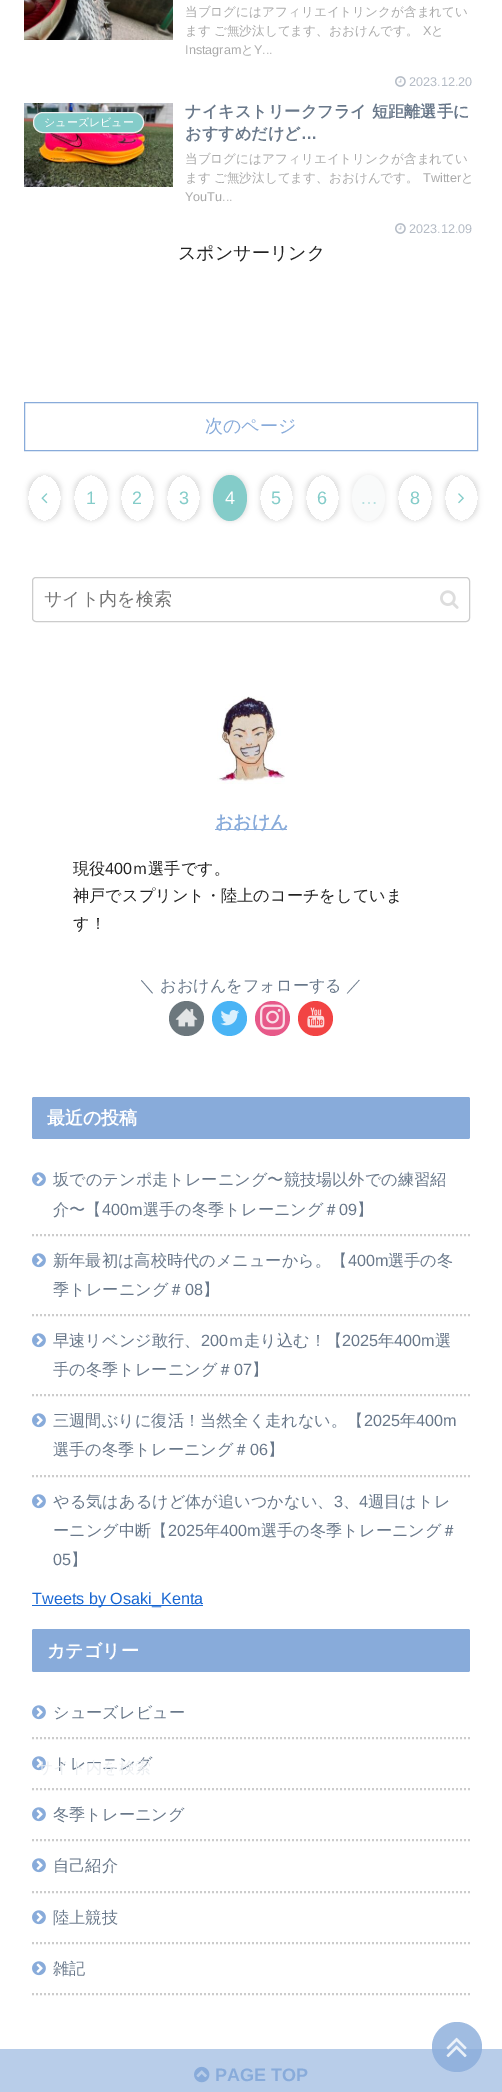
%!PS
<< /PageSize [502 2092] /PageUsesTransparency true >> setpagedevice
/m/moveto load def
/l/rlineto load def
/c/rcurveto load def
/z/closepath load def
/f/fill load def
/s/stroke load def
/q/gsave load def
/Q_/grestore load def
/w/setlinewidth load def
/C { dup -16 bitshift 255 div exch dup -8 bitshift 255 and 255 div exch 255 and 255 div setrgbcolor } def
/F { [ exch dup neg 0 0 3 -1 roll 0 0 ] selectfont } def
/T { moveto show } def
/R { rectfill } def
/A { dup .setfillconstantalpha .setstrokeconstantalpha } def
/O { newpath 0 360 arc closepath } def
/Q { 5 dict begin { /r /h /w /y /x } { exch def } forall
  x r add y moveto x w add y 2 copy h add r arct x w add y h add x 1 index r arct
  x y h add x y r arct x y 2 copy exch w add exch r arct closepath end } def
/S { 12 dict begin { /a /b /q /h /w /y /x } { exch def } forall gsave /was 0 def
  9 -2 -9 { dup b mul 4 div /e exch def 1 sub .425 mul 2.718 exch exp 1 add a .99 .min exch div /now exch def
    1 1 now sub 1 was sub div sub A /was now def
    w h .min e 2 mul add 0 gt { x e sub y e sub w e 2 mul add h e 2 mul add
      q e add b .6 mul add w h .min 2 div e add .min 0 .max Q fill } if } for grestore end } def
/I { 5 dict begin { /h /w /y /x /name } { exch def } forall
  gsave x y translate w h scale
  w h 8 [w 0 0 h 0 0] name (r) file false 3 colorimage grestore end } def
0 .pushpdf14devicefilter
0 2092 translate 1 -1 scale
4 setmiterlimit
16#FFFFFF C
0 0 502 2092 R
(1.rgb) 24 0 149 40 I
/WenQuanYiZenHei-Medium 12.6 F
16#AAAAAA C
(当ブログにはアフィリエイトリンクが含まれてい) 185 16 T
(ます) 185 35 T
(ご無沙汰してます、おおけんです。) 214 35 T
/LiberationSans-Regular 12.6 F
(X) 423 35 T
/WenQuanYiZenHei-Medium 12.6 F
(と) 431 35 T
/LiberationSans-Regular 12.6 F
(Instagram) 185 54 T
/WenQuanYiZenHei-Medium 12.6 F
(と) 241 54 T
/LiberationSans-Regular 12.6 F
(Y...) 254 54 T
(2.rgb) 395 76 11 11 I
16#B4BBC5 C
(2023.12.20) 409 86 T
(3.rgb) 24 103 149 84 I
16#84CCC9 C
33.5 112.5 110 20 9.5 Q q f Q_
16#EEEEEE C
s
/WenQuanYiZenHei-Medium 11 F
16#FFFFFF C
(シューズレビュー) 44 126 T
/WenQuanYiZenHei-Bold 16.2 F
16#69788A C
(ナイキストリークフライ 短距離選手に) 185 117 T
(おすすめだけど) 185 139 T
/LiberationSans-Bold 16.2 F
(…) 301 139 T
/WenQuanYiZenHei-Medium 12.6 F
16#AAAAAA C
(当ブログにはアフィリエイトリンクが含まれてい) 185 163 T
(ます) 185 182 T
(ご無沙汰してます、おおけんです。) 214 182 T
/LiberationSans-Regular 12.6 F
(Twitter) 423 182 T
/WenQuanYiZenHei-Medium 12.6 F
(と) 461 182 T
/LiberationSans-Regular 12.6 F
(YouTu...) 185 201 T
(2.rgb) 395 223 11 11 I
16#B4BBC5 C
(2023.12.09) 409 233 T
/WenQuanYiZenHei-Medium 18 F
16#222222 C
(スポンサーリンク) 178 259 T
16#88ABDA C
24.5 402.5 453 48 rectstroke
(次のページ) 205 432 T
q
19 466 m 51 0 l 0 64 l -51 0 l z 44.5 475 m 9 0 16.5 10.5 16.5 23 c 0 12.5 -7.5 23 -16.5 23 c -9 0 -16.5 -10.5 -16.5 -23 c 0 -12.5 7.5 -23 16.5 -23 c z eoclip newpath
16#000000 C
28 475 33 46 16.5 2.5 .13 S
Q_
(4.rgb) 41 493 7 11 I
q
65 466 m 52 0 l 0 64 l -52 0 l z 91 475 m 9.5 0 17 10.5 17 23 c 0 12.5 -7.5 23 -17 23 c -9.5 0 -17 -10.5 -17 -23 c 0 -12.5 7.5 -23 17 -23 c z eoclip newpath
16#000000 C
74 475 34 46 17 2.5 .13 S
Q_
/LiberationSans-Regular 18 F
16#84CCC9 C
(1) 86 504 T
q
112 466 m 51 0 l 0 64 l -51 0 l z 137.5 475 m 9 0 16.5 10.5 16.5 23 c 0 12.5 -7.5 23 -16.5 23 c -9 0 -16.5 -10.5 -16.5 -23 c 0 -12.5 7.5 -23 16.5 -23 c z eoclip newpath
16#000000 C
121 475 33 46 16.5 2.5 .13 S
Q_
(2) 132 504 T
q
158 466 m 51 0 l 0 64 l -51 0 l z 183.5 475 m 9 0 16.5 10.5 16.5 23 c 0 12.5 -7.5 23 -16.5 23 c -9 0 -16.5 -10.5 -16.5 -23 c 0 -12.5 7.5 -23 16.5 -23 c z eoclip newpath
16#000000 C
167 475 33 46 16.5 2.5 .13 S
Q_
(3) 179 504 T
16#000000 C
213 475 34 46 17 2.5 .13 S
16#84CCC9 C
230 475 m 9.5 0 17 10.5 17 23 c 0 12.5 -7.5 23 -17 23 c -9.5 0 -17 -10.5 -17 -23 c 0 -12.5 7.5 -23 17 -23 c z f
16#FFFFFF C
(4) 225 504 T
q
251 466 m 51 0 l 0 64 l -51 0 l z 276.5 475 m 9 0 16.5 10.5 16.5 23 c 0 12.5 -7.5 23 -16.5 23 c -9 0 -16.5 -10.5 -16.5 -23 c 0 -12.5 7.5 -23 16.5 -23 c z eoclip newpath
16#000000 C
260 475 33 46 16.5 2.5 .13 S
Q_
16#84CCC9 C
(5) 271 504 T
q
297 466 m 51 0 l 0 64 l -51 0 l z 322.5 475 m 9 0 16.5 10.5 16.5 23 c 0 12.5 -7.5 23 -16.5 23 c -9 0 -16.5 -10.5 -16.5 -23 c 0 -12.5 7.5 -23 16.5 -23 c z eoclip newpath
16#000000 C
306 475 33 46 16.5 2.5 .13 S
Q_
(6) 317 504 T
16#666666 C
352 475 33 46 16.5 2.5 .13 S
16#F9FAFA C
368.5 475 m 9 0 16.5 10.5 16.5 23 c 0 12.5 -7.5 23 -16.5 23 c -9 0 -16.5 -10.5 -16.5 -23 c 0 -12.5 7.5 -23 16.5 -23 c z f
16#B5E0DF C
(…) 360 504 T
q
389 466 m 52 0 l 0 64 l -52 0 l z 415 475 m 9.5 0 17 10.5 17 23 c 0 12.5 -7.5 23 -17 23 c -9.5 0 -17 -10.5 -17 -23 c 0 -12.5 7.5 -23 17 -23 c z eoclip newpath
16#000000 C
398 475 34 46 17 2.5 .13 S
Q_
16#84CCC9 C
(8) 410 504 T
q
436 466 m 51 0 l 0 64 l -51 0 l z 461.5 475 m 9 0 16.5 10.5 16.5 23 c 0 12.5 -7.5 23 -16.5 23 c -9 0 -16.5 -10.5 -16.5 -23 c 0 -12.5 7.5 -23 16.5 -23 c z eoclip newpath
16#000000 C
445 475 33 46 16.5 2.5 .13 S
Q_
(5.rgb) 458 493 6 11 I
16#CCCCCC C
32.5 577.5 437 44 3.5 Q s
/WenQuanYiZenHei-Medium 18 F
16#757575 C
(サイト内を検索) 44 605 T
(6.rgb) 440 590 19 19 I
(7.rgb) 217 696 68 88 I
16#88ABDA C
215 829 72 1 R
/WenQuanYiZenHei-Bold 18 F
(おおけん) 215 828 T
/WenQuanYiZenHei-Medium 16.2 F
16#222222 C
(現役) 73 874 T
/LiberationSans-Regular 16.2 F
(400) 105 874 T
/WenQuanYiZenHei-Medium 16.2 F
(ｍ選手です。) 132 874 T
(神戸でスプリント・陸上のコーチをしていま) 73 901 T
(す！) 73 929 T
16#69788A C
(＼) 139 991 T
(おおけんをフォローする) 160 991 T
(／) 346 991 T
16#6C777D C
186.5 1018.5 17.5 O f
(8.rgb) 175 1008 23 19 I
16#4AB4F5 C
229.5 1018.5 17.5 O f
(9.rgb) 220 1010 20 16 I
16#E75989 C
272.5 1018.5 17.5 O f
(10.rgb) 260 1004 25 26 I
16#F24444 C
315.5 1018.5 17.5 O f
(11.rgb) 307 1007 18 21 I
16#88ABDA C
32 1097 438 42 2 Q f
/WenQuanYiZenHei-Bold 18 F
16#FFFFFF C
(最近の投稿) 47 1124 T
16#CCCCCC C
2 w
[2 2] 0 setdash
32 1235 m 438 0 l s
(12.rgb) 32 1172 14 15 I
/WenQuanYiZenHei-Medium 16.2 F
16#69788A C
(坂でのテンポ走トレーニング〜競技場以外での練習紹) 53 1185 T
(介〜【) 53 1215 T
/LiberationSans-Regular 16.2 F
(400m) 102 1215 T
/WenQuanYiZenHei-Medium 16.2 F
(選手の冬季トレーニング＃) 143 1215 T
/LiberationSans-Regular 16.2 F
(09) 339 1215 T
/WenQuanYiZenHei-Medium 16.2 F
(】) 357 1215 T
16#CCCCCC C
32 1315 m 438 0 l s
(12.rgb) 32 1253 14 15 I
16#69788A C
(新年最初は高校時代のメニューから。【) 53 1266 T
/LiberationSans-Regular 16.2 F
(400m) 348 1266 T
/WenQuanYiZenHei-Medium 16.2 F
(選手の冬) 388 1266 T
(季トレーニング＃) 53 1295 T
/LiberationSans-Regular 16.2 F
(08) 185 1295 T
/WenQuanYiZenHei-Medium 16.2 F
(】) 203 1295 T
16#CCCCCC C
32 1395 m 438 0 l s
(12.rgb) 32 1333 14 15 I
16#69788A C
(早速リベンジ敢行、) 53 1346 T
/LiberationSans-Regular 16.2 F
(200) 201 1346 T
/WenQuanYiZenHei-Medium 16.2 F
(ｍ走り込む！【) 228 1346 T
/LiberationSans-Regular 16.2 F
(2025) 342 1346 T
/WenQuanYiZenHei-Medium 16.2 F
(年) 378 1346 T
/LiberationSans-Regular 16.2 F
(400m) 394 1346 T
/WenQuanYiZenHei-Medium 16.2 F
(選) 435 1346 T
(手の冬季トレーニング＃) 53 1375 T
/LiberationSans-Regular 16.2 F
(07) 234 1375 T
/WenQuanYiZenHei-Medium 16.2 F
(】) 252 1375 T
16#CCCCCC C
32 1476 m 438 0 l s
(12.rgb) 32 1413 14 15 I
16#69788A C
(三週間ぶりに復活！当然全く走れない。【) 53 1426 T
/LiberationSans-Regular 16.2 F
(2025) 364 1426 T
/WenQuanYiZenHei-Medium 16.2 F
(年) 400 1426 T
/LiberationSans-Regular 16.2 F
(400m) 416 1426 T
/WenQuanYiZenHei-Medium 16.2 F
(選手の冬季トレーニング＃) 53 1455 T
/LiberationSans-Regular 16.2 F
(06) 250 1455 T
/WenQuanYiZenHei-Medium 16.2 F
(】) 268 1455 T
(12.rgb) 32 1494 14 15 I
(やる気はあるけど体が追いつかない、) 53 1507 T
/LiberationSans-Regular 16.2 F
(3) 334 1507 T
/WenQuanYiZenHei-Medium 16.2 F
(、) 343 1507 T
/LiberationSans-Regular 16.2 F
(4) 359 1507 T
/WenQuanYiZenHei-Medium 16.2 F
(週目はトレ) 368 1507 T
(ーニング中断【) 53 1536 T
/LiberationSans-Regular 16.2 F
(2025) 168 1536 T
/WenQuanYiZenHei-Medium 16.2 F
(年) 204 1536 T
/LiberationSans-Regular 16.2 F
(400m) 220 1536 T
/WenQuanYiZenHei-Medium 16.2 F
(選手の冬季トレーニング＃) 261 1536 T
/LiberationSans-Regular 16.2 F
(05) 53 1565 T
/WenQuanYiZenHei-Medium 16.2 F
(】) 71 1565 T
16#1967D2 C
32 1605 171 1 R
/LiberationSans-Regular 16.2 F
(Tweets by Osaki_Kenta) 32 1604 T
16#88ABDA C
32 1629 438 43 2 Q f
/WenQuanYiZenHei-Bold 18 F
16#FFFFFF C
(カテゴリー) 47 1657 T
16#CCCCCC C
32 1738 m 438 0 l s
(12.rgb) 32 1705 14 15 I
/WenQuanYiZenHei-Medium 16.2 F
16#69788A C
(シューズレビュー) 53 1718 T
16#CCCCCC C
32 1789 m 438 0 l s
(12.rgb) 32 1756 14 15 I
16#69788A C
(トレーニング) 53 1769 T
16#CCCCCC C
32 1840 m 438 0 l s
(12.rgb) 32 1807 14 15 I
16#69788A C
(冬季トレーニング) 53 1820 T
16#CCCCCC C
32 1892 m 438 0 l s
(12.rgb) 32 1858 14 15 I
16#69788A C
(自己紹介) 53 1871 T
16#CCCCCC C
32 1943 m 438 0 l s
(12.rgb) 32 1910 14 15 I
16#69788A C
(陸上競技) 53 1923 T
16#CCCCCC C
32 1994 m 438 0 l s
(12.rgb) 32 1961 14 15 I
16#69788A C
(雑記) 53 1974 T
/WenQuanYiZenHei-Medium 16 F
16#ECEFF2 C
(サイト内を検索) 37 1773 T
16#B8CDE9 C
0 2049 502 43 R
0.8 A
16#88ABDA C
457 2047 25 O f
1 A
(13.rgb) 446 2037 21 21 I
(14.rgb) 194 2066 16 17 I
/LiberationSans-Bold 18 F
(PAGE TOP) 215 2081 T
.poppdf14devicefilter showpage
